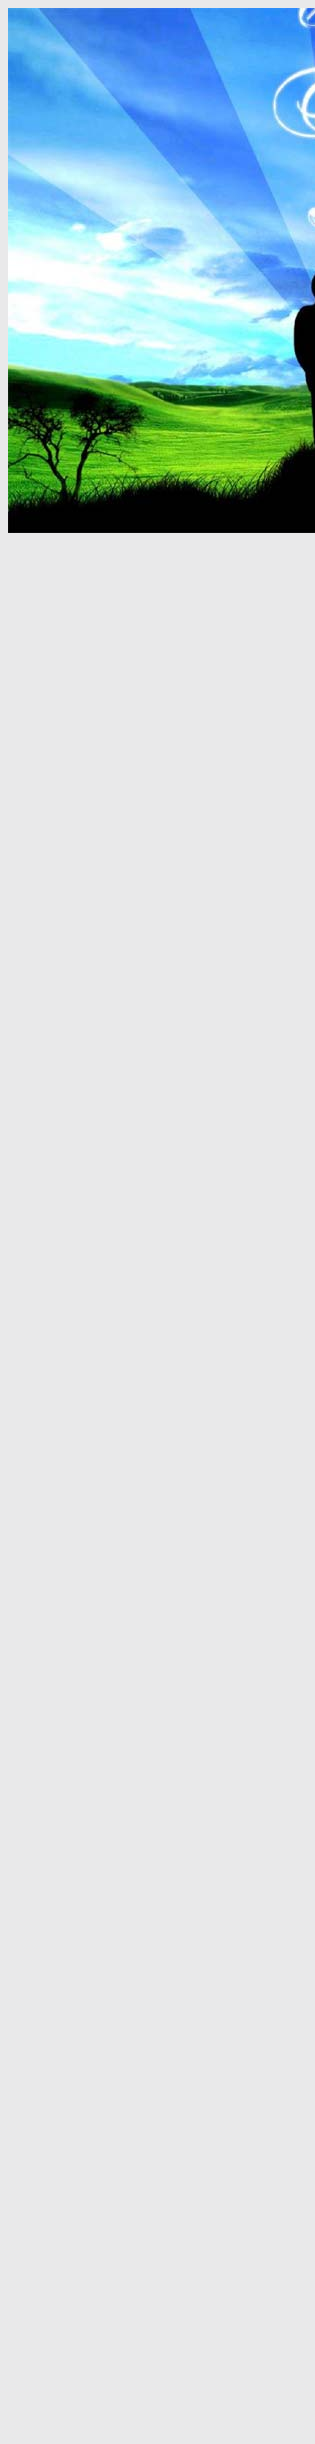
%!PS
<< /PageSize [315 2444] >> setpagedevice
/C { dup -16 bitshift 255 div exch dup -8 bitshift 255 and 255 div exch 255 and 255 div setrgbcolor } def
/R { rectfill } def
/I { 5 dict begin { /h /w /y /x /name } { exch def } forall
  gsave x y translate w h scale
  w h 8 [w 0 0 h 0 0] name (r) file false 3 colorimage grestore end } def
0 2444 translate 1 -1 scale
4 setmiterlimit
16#E9E9EA C
0 0 315 2444 R
(1.rgb) 8 8 307 525 I
showpage
